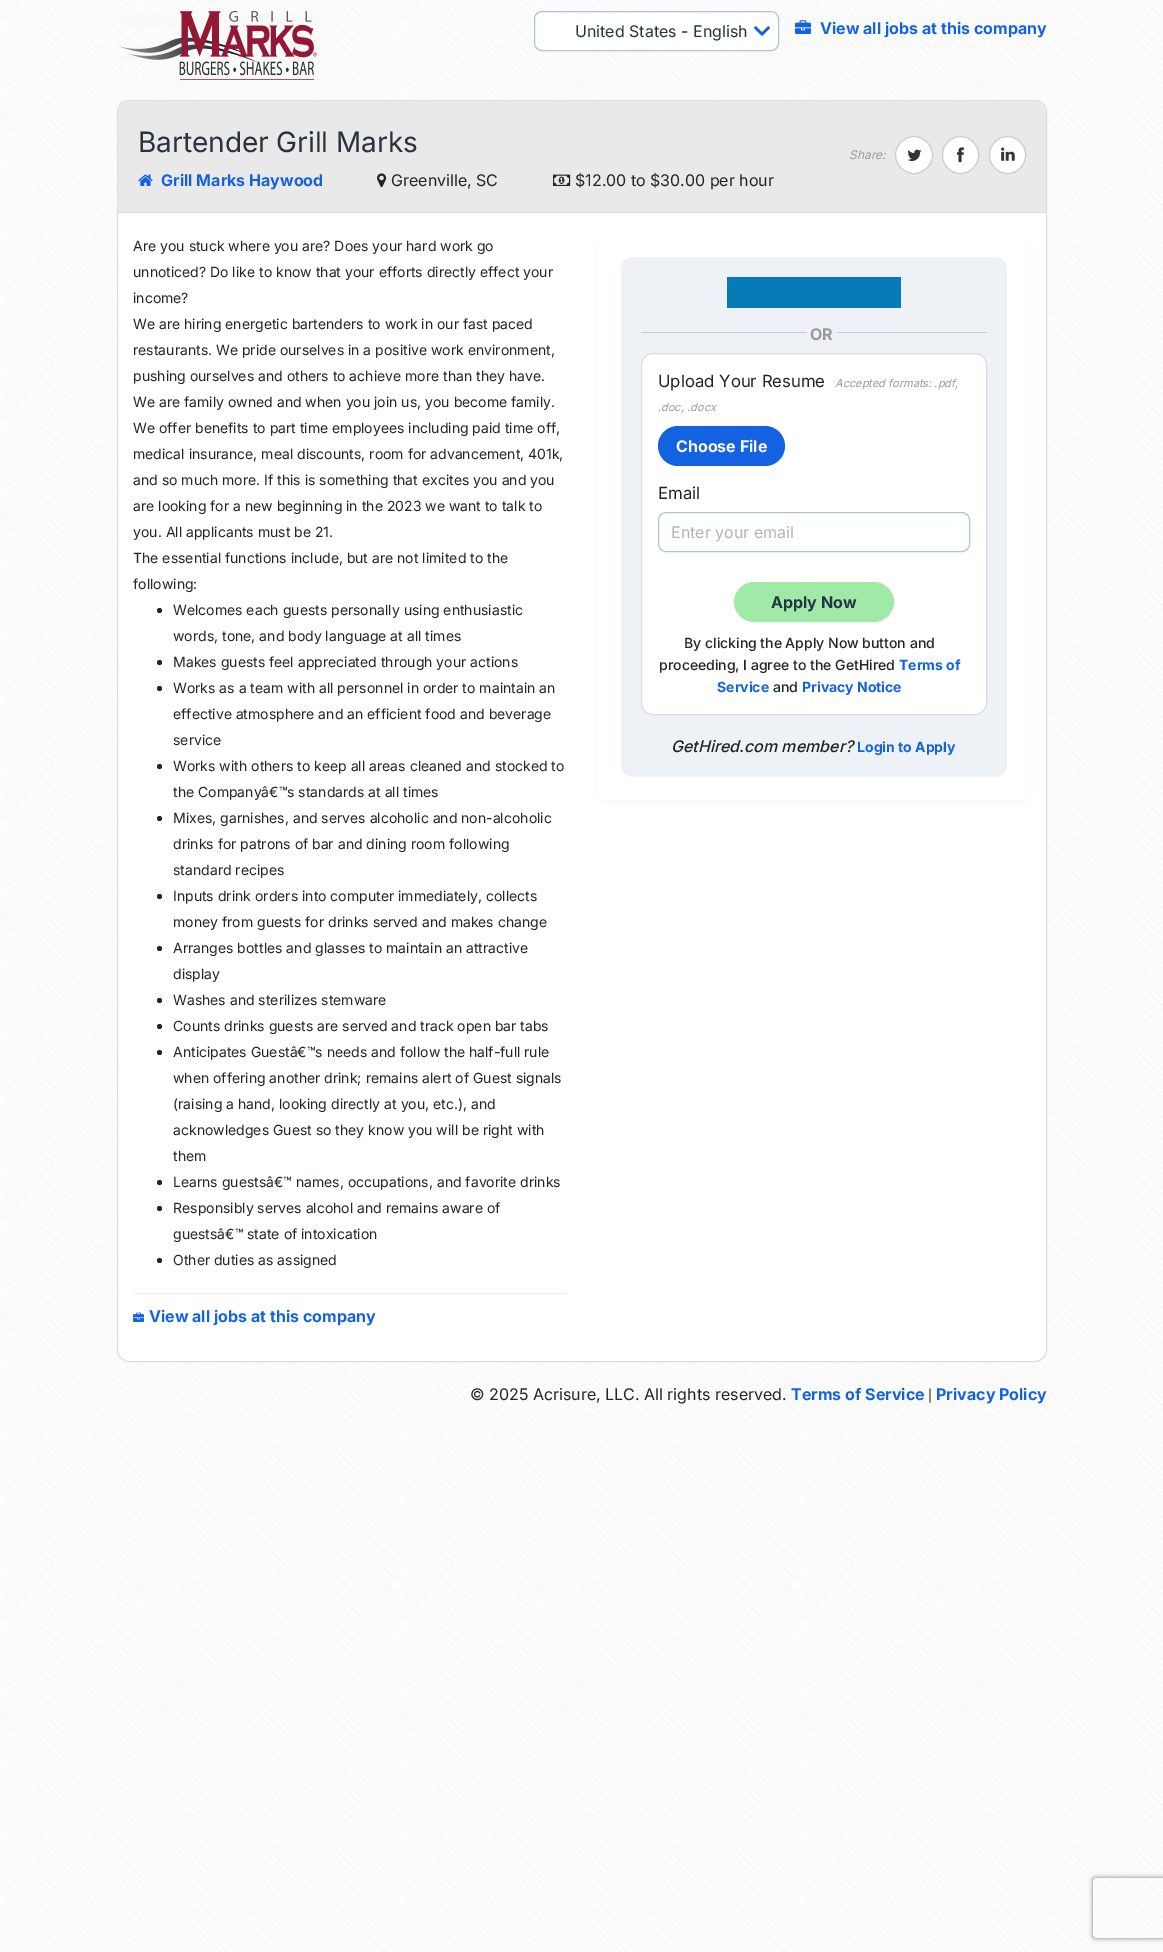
%!PS
<< /PageSize [1163 1952] /PageUsesTransparency true >> setpagedevice
/m/moveto load def
/l/rlineto load def
/c/rcurveto load def
/z/closepath load def
/f/fill load def
/s/stroke load def
/q/gsave load def
/Q_/grestore load def
/w/setlinewidth load def
/C { dup -16 bitshift 255 div exch dup -8 bitshift 255 and 255 div exch 255 and 255 div setrgbcolor } def
/F { [ exch dup neg 0 0 3 -1 roll 0 0 ] selectfont } def
/T { moveto show } def
/R { rectfill } def
/A { dup .setfillconstantalpha .setstrokeconstantalpha } def
/O { newpath 0 360 arc closepath } def
/Q { 5 dict begin { /r /h /w /y /x } { exch def } forall
  x r add y moveto x w add y 2 copy h add r arct x w add y h add x 1 index r arct
  x y h add x y r arct x y 2 copy exch w add exch r arct closepath end } def
/S { 12 dict begin { /a /b /q /h /w /y /x } { exch def } forall gsave /was 0 def
  9 -2 -9 { dup b mul 4 div /e exch def 1 sub .425 mul 2.718 exch exp 1 add a .99 .min exch div /now exch def
    1 1 now sub 1 was sub div sub A /was now def
    w h .min e 2 mul add 0 gt { x e sub y e sub w e 2 mul add h e 2 mul add
      q e add b .6 mul add w h .min 2 div e add .min 0 .max Q fill } if } for grestore end } def
/I { 5 dict begin { /h /w /y /x /name } { exch def } forall
  gsave x y translate w h scale
  w h 8 [w 0 0 h 0 0] name (r) file false 3 colorimage grestore end } def
0 .pushpdf14devicefilter
0 1952 translate 1 -1 scale
4 setmiterlimit
16#FFFFFF C
0 0 1163 1952 R
(1.rgb) 0 0 1163 1952 I
(2.rgb) 119 11 198 69 I
534 11 245 40 8 Q f
(3.rgb) 754 26 16 10 I
16#ABC6D8 C
534.5 11.5 244 39 7.5 Q s
/Inter-Regular 16 F
16#203645 C
(United States - English) 575 37 T
(4.rgb) 795 20 16 14 I
/Inter-Bold 16 F
16#1362E2 C
(View all jobs at this company) 820 34 T
16#FFFFFF C
117.5 100.5 929 1261 11.5 Q q f Q_
16#DDDDDD C
s
16#E9E9E9 C
130 101 m 904 0 l 6.5 0 12 5.5 12 12 c 0 99 l -928 0 l 0 -99 l 0 -6.5 5.5 -12 12 -12 c z f
16#DDDDDD C
118 212 928 1 R
/Inter-Regular 28 F
16#29323D C
(Bartender Grill Marks) 138 152 T
(5.rgb) 138 174 15 12 I
/Inter-Bold 16 F
16#1362E2 C
(Grill Marks Haywood) 161 186 T
(6.rgb) 377 173 10 15 I
/Inter-Regular 16 F
16#212529 C
(Greenville, SC) 391 186 T
(7.rgb) 553 174 18 12 I
($12.00 to $30.00 per hour) 575 186 T
/Inter-Italic 12 F
16#999999 C
(Share:) 849 159 T
16#FFFFFF C
914 155 18.5 O q f Q_
16#CCCCCC C
s
(8.rgb) 907 149 15 12 I
16#FFFFFF C
942.5 136.5 36 37 18 Q q f Q_
16#CCCCCC C
s
(9.rgb) 957 147 7 16 I
16#FFFFFF C
989.5 136.5 36 37 18 Q q f Q_
16#CCCCCC C
s
(10.rgb) 1001 147 14 14 I
/Inter-Regular 14 F
16#212529 C
(Are you stuck where you are? Does your hard work go) 133 251 T
(unnoticed? Do like to know that your efforts directly effect your) 133 277 T
(income?) 133 303 T
(We are hiring energetic bartenders to work in our fast paced) 133 329 T
(restaurants. We pride ourselves in a positive work environment,) 133 355 T
(pushing ourselves and others to achieve more than they have.) 133 381 T
(We are family owned and when you join us, you become family.) 133 407 T
(We offer benefits to part time employees including paid time off,) 133 433 T
(medical insurance, meal discounts, room for advancement, 401k,) 133 459 T
(and so much more. If this is something that excites you and you) 133 485 T
(are looking for a new beginning in the 2023 we want to talk to) 133 511 T
(you. All applicants must be 21.) 133 537 T
(The essential functions include, but are not limited to the) 133 563 T
(following:) 133 589 T
159.5 610.5 2.5 O f
(Welcomes each guests personally using enthusiastic) 173 615 T
(words, tone, and body language at all times) 173 641 T
159.5 662.5 2.5 O f
(Makes guests feel appreciated through your actions) 173 667 T
159.5 688.5 2.5 O f
(Works as a team with all personnel in order to maintain an) 173 693 T
(effective atmosphere and an efficient food and beverage) 173 719 T
(service) 173 745 T
159.5 766.5 2.5 O f
(Works with others to keep all areas cleaned and stocked to) 173 771 T
(the Companyâ€™s standards at all times) 173 797 T
159.5 818.5 2.5 O f
(Mixes, garnishes, and serves alcoholic and non-alcoholic) 173 823 T
(drinks for patrons of bar and dining room following) 173 849 T
(standard recipes) 173 875 T
159.5 896.5 2.5 O f
(Inputs drink orders into computer immediately, collects) 173 901 T
(money from guests for drinks served and makes change) 173 927 T
159.5 948.5 2.5 O f
(Arranges bottles and glasses to maintain an attractive) 173 953 T
(display) 173 979 T
159.5 1000.5 2.5 O f
(Washes and sterilizes stemware) 173 1005 T
159.5 1026.5 2.5 O f
(Counts drinks guests are served and track open bar tabs) 173 1031 T
159.5 1052.5 2.5 O f
(Anticipates Guestâ€™s needs and follow the half-full rule) 173 1057 T
(when offering another drink; remains alert of Guest signals) 173 1083 T
(\(raising a hand, looking directly at you, etc.\), and) 173 1109 T
(acknowledges Guest so they know you will be right with) 173 1135 T
(them) 173 1161 T
159.5 1182.5 2.5 O f
(Learns guestsâ€™ names, occupations, and favorite drinks) 173 1187 T
159.5 1208.5 2.5 O f
(Responsibly serves alcohol and remains aware of) 173 1213 T
(guestsâ€™ state of intoxication) 173 1239 T
159.5 1260.5 2.5 O f
(Other duties as assigned) 173 1265 T
16#EEEEEE C
133 1293 434 1 R
(11.rgb) 133 1312 11 10 I
/Inter-Bold 16 F
16#1362E2 C
(View all jobs at this company) 149 1322 T
16#000000 C
597 235 434 568 12 4 .04 S
16#FFFFFF C
597 233 434 568 12 Q f
16#EEF2F6 C
621 257 386 520 12 Q f
16#077AB8 C
727 277 174 31 R
16#CCCCCC C
641 332 346 1 R
16#EEF2F6 C
807 332 30 1 R
16#999999 C
(OR) 810 340 T
16#FFFFFF C
641.5 353.5 345 361 11.5 Q q f Q_
16#DDDDDD C
s
/Inter-Regular 16.75 F
16#212529 C
(Upload Your Resume) 658 387 T
/Inter-Italic 11 F
16#999999 C
(Accepted formats: .pdf,) 835 387 T
(.doc, .docx) 658 411 T
16#1362E2 C
658 426 127 40 20 Q f
/Inter-Bold 16 F
16#FCFCFC C
(Choose File) 676 452 T
/Inter-Regular 16.75 F
16#212529 C
(Email) 658 499 T
16#ABC6D8 C
658.5 512.5 311 39 7.5 Q s
/Inter-Regular 16 F
16#B0B4B5 C
(Enter your email) 671 538 T
16#A0E9A7 C
735 583 158 38 19 Q q f Q_
2 w
s
/Inter-Bold 16 F
16#203645 C
(Apply Now) 771 608 T
/Inter-Medium 14 F
16#212529 C
(By clicking the Apply Now button and) 684 648 T
(proceeding, I agree to the GetHired) 659 670 T
/Inter-Bold 14 F
16#1362E2 C
(Terms of) 899 670 T
(Service) 717 692 T
/Inter-Medium 14 F
16#212529 C
(and) 773 692 T
/Inter-Bold 14 F
16#1362E2 C
(Privacy Notice) 802 692 T
/Inter-MediumItalic 16 F
16#212529 C
(GetHired.com member?) 671 752 T
/Inter-Bold 14 F
16#1362E2 C
(Login to Apply) 857 752 T
/Inter-Regular 16 F
16#212529 C
(© 2025 Acrisure, LLC. All rights reserved.) 470 1400 T
/Inter-Bold 16 F
16#1362E2 C
(Terms of Service) 791 1400 T
/Inter-Regular 12 F
16#212529 C
(|) 928 1400 T
/Inter-Bold 16 F
16#1362E2 C
(Privacy Policy) 936 1400 T
q
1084 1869 m 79 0 l 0 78 l -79 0 l z 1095 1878 m 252 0 l 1 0 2 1 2 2 c 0 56 l 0 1 -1 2 -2 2 c -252 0 l -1 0 -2 -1 -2 -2 c 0 -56 l 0 -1 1 -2 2 -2 c z eoclip newpath
16#808080 C
1093 1878 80 60 2 2.5 1 S
Q_
.poppdf14devicefilter showpage
